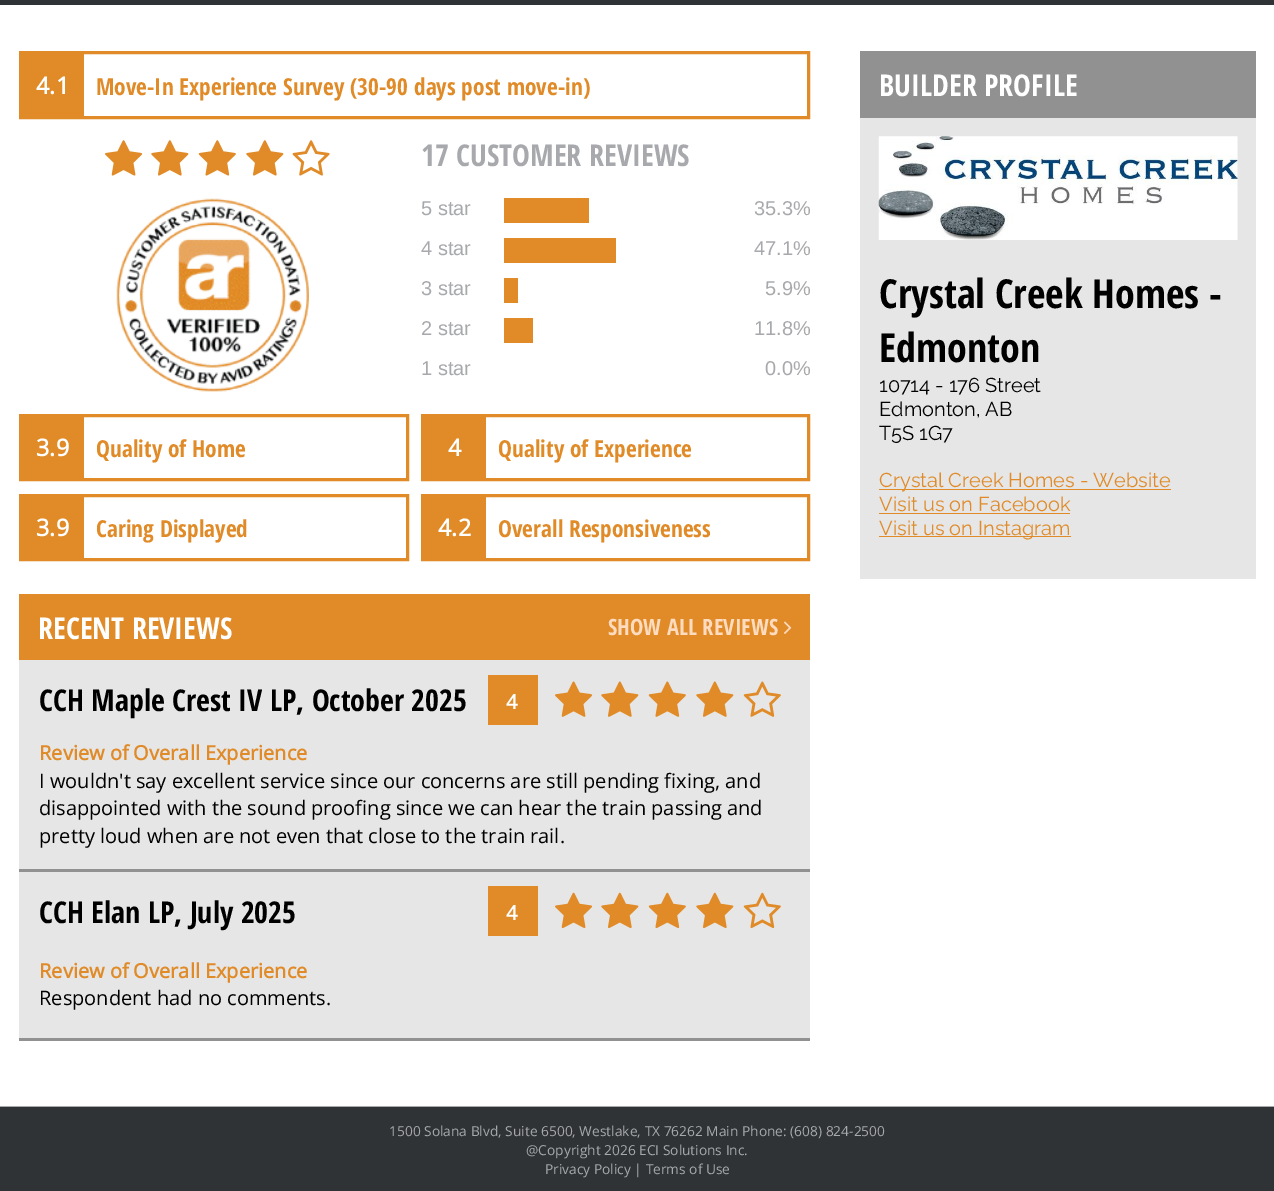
%!PS
<< /PageSize [1274 1191] >> setpagedevice
/w/setlinewidth load def
/C { dup -16 bitshift 255 div exch dup -8 bitshift 255 and 255 div exch 255 and 255 div setrgbcolor } def
/F { [ exch dup neg 0 0 3 -1 roll 0 0 ] selectfont } def
/T { moveto show } def
/R { rectfill } def
/I { 5 dict begin { /h /w /y /x /name } { exch def } forall
  gsave x y translate w h scale
  w h 8 [w 0 0 h 0 0] name (r) file false 3 colorimage grestore end } def
0 1191 translate 1 -1 scale
4 setmiterlimit
16#FFFFFF C
0 0 1274 1191 R
16#2F3336 C
0 0 1274 5 R
16#E08B28 C
3 w
20.5 52.5 788 65 rectstroke
22 54 62 62 R
/OpenSans-Bold 23.4 F
16#FFFFFF C
(4.1) 36 94 T
/OpenSansCondensed-Bold 23.4 F
16#E08B28 C
(Move-In Experience Survey \(30-90 days post move-in\)) 96 95 T
(1.rgb) 105 140 38 36 I
(2.rgb) 151 140 38 36 I
(3.rgb) 198 140 38 36 I
(2.rgb) 246 140 38 36 I
(4.rgb) 292 140 38 36 I
(5.rgb) 116 198 193 194 I
/OpenSansCondensed-Bold 30 F
16#A7A9AC C
(17 CUSTOMER REVIEWS) 421 166 T
/Arimo-Regular 20 F
(5 star) 421 215 T
16#E08B28 C
504 198 85 25 R
16#A7A9AC C
(35.3%) 754 215 T
(4 star) 421 255 T
16#E08B28 C
504 238 112 25 R
16#A7A9AC C
(47.1%) 754 255 T
(3 star) 421 295 T
16#E08B28 C
504 278 14 25 R
16#A7A9AC C
(5.9%) 765 295 T
(2 star) 421 335 T
16#E08B28 C
504 318 29 25 R
16#A7A9AC C
(11.8%) 754 335 T
(1 star) 421 375 T
(0.0%) 765 375 T
16#E08B28 C
20.5 415.5 387 64 rectstroke
22 417 62 61 R
/OpenSans-Bold 23.4 F
16#FFFFFF C
(3.9) 36 456 T
/OpenSansCondensed-Bold 23.4 F
16#E08B28 C
(Quality of Home) 96 457 T
422.5 415.5 386 64 rectstroke
424 417 62 61 R
/OpenSans-Bold 23.4 F
16#FFFFFF C
(4) 448 456 T
/OpenSansCondensed-Bold 23.4 F
16#E08B28 C
(Quality of Experience) 498 457 T
20.5 495.5 387 64 rectstroke
22 497 62 61 R
/OpenSans-Bold 23.4 F
16#FFFFFF C
(3.9) 36 536 T
/OpenSansCondensed-Bold 23.4 F
16#E08B28 C
(Caring Displayed) 96 537 T
422.5 495.5 386 64 rectstroke
424 497 62 61 R
/OpenSans-Bold 23.4 F
16#FFFFFF C
(4.2) 438 536 T
/OpenSansCondensed-Bold 23.4 F
16#E08B28 C
(Overall Responsiveness) 498 537 T
16#E6E6E6 C
19 660 791 378 R
16#E08B28 C
19 594 791 66 R
/OpenSansCondensed-Bold 30 F
16#FFFFFF C
(RECENT REVIEWS) 38 639 T
/OpenSansCondensed-Bold 22.5 F
16#FFDCC0 C
(SHOW ALL REVIEWS) 608 635 T
(6.rgb) 784 621 8 13 I
16#919191 C
19 869 791 3 R
/OpenSansCondensed-Bold 30 F
16#000000 C
(CCH Maple Crest IV LP, October 2025) 39 711 T
16#E08B28 C
488 675 50 50 R
/OpenSans-Bold 20 F
16#FFFFFF C
(4) 506 709 T
(7.rgb) 555 681 38 36 I
(8.rgb) 601 681 38 36 I
(9.rgb) 648 681 38 36 I
(8.rgb) 696 681 38 36 I
(10.rgb) 743 681 38 36 I
16#E08B28 C
(Review of Overall Experience) 39 760 T
/OpenSans-Regular 20 F
16#000000 C
(I wouldn't say excellent service since our concerns are still pending fixing, and) 39 788 T
(disappointed with the sound proofing since we can hear the train passing and) 39 815 T
(pretty loud when are not even that close to the train rail.) 39 843 T
16#919191 C
19 1038 791 3 R
/OpenSansCondensed-Bold 30 F
16#000000 C
(CCH Elan LP, July 2025) 39 923 T
16#E08B28 C
488 886 50 50 R
/OpenSans-Bold 20 F
16#FFFFFF C
(4) 506 920 T
(11.rgb) 555 892 38 37 I
(12.rgb) 601 892 38 37 I
(13.rgb) 648 892 38 37 I
(12.rgb) 696 892 38 37 I
(14.rgb) 743 892 38 37 I
16#E08B28 C
(Review of Overall Experience) 39 978 T
/OpenSans-Regular 20 F
16#000000 C
(Respondent had no comments.) 39 1005 T
16#E6E6E6 C
860 118 396 461 R
16#919191 C
860 51 396 67 R
/OpenSansCondensed-Bold 30 F
16#FFFFFF C
(BUILDER PROFILE) 879 96 T
(15.rgb) 878 136 360 104 I
/OpenSansCondensed-Bold 40 F
16#000000 C
(Crystal Creek Homes -) 879 308 T
(Edmonton) 879 362 T
/Raleway-Thin 20 F
(10714 - 176 Street) 879 392 T
(Edmonton, AB) 879 416 T
(T5S 1G7) 879 440 T
16#E08B28 C
879 489 292 1 R
(Crystal Creek Homes - Website) 879 487 T
(Visit us on Facebook) 879 511 T
879 513 191 1 R
879 536 192 1 R
(Visit us on Instagram) 879 535 T
16#2F3336 C
0 1107 1274 84 R
16#A7A9AC C
0 1106 1274 1 R
/OpenSans-Regular 13.75 F
(1500 Solana Blvd, Suite 6500, Westlake, TX 76262 Main Phone: \(608\) 824-2500) 389 1136 T
(@Copyright 2026 ECI Solutions Inc.) 526 1155 T
(Privacy Policy | Terms of Use) 545 1174 T
showpage
